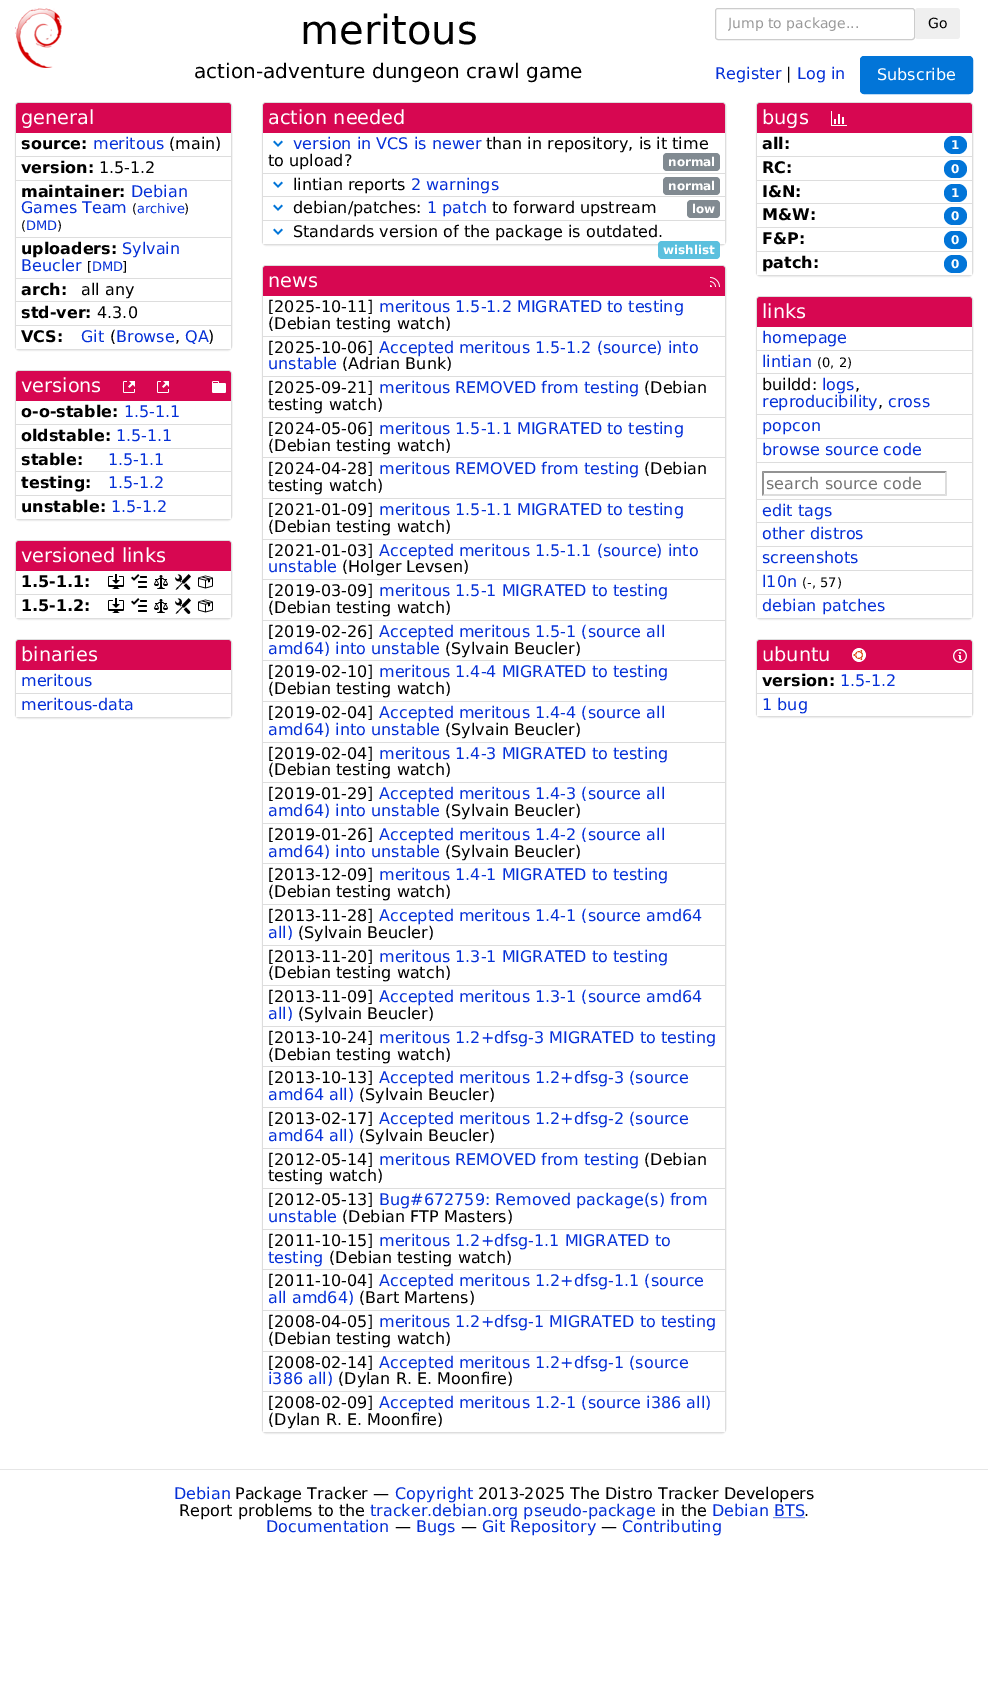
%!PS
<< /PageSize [988 1681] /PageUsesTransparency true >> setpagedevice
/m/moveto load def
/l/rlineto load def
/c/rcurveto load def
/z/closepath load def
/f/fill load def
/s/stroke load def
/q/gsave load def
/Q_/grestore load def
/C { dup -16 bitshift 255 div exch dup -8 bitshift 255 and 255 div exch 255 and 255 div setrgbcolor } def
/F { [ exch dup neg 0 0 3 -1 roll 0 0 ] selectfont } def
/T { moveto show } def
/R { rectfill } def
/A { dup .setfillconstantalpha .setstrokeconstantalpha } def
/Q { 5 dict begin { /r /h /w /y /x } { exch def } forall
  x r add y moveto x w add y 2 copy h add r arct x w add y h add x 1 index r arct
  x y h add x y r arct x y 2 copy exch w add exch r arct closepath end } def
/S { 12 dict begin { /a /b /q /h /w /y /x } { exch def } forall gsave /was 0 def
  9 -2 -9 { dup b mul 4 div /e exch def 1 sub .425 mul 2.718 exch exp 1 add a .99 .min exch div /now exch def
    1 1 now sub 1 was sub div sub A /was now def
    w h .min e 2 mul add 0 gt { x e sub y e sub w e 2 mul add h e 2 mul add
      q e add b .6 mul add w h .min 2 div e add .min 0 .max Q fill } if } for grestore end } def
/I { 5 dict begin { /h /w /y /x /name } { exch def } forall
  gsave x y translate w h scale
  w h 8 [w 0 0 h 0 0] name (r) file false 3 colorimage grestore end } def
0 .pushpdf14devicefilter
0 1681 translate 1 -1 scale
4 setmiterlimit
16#FFFFFF C
0 0 988 1681 R
(1.rgb) 15 8 47 60 I
/DejaVuSans-Regular 40 F
16#000000 C
(meritous) 300 44 T
/DejaVuSans-Regular 20 F
(action-adventure dungeon crawl game) 194 78 T
16#CCCCCC C
715.5 8.5 199 31 2.5 Q s
q
728 15 170 16 rectclip
/DejaVuSans-Regular 14 F
16#999999 C
(Jump to package...) 728 28 T
Q_
16#EFEFEF C
915 8 45 31 3 Q f
/DejaVuSans-Regular 14 F
16#000000 C
(Go) 928 28 T
/DejaVuSans-Regular 16 F
16#0530D7 C
(Register) 715 79 T
16#000000 C
(|) 786 79 T
16#0530D7 C
(Log in) 797 79 T
16#0275D8 C
860.5 56.5 112 37 3.5 Q q f Q_
s
16#FFFFFF C
(Subscribe) 877 80 T
16#000000 C
15 103 217 248 4 .5 .05 S
16#DDDDDD C
15.5 102.5 216 247 3.5 Q s
16#D70751 C
19 103 m 209 0 l 1.5 0 3 1.5 3 3 c 0 28 l -215 0 l 0 -28 l 0 -1.5 1.5 -3 3 -3 c z f
/DejaVuSans-Regular 19.25 F
16#FFFFFF C
(general) 21 124 T
16 133 215 216 R
16#DDDDDD C
16 156 215 1 R
/DejaVuSans-Bold 16 F
16#000000 C
(source:) 21 149 T
/DejaVuSans-Regular 16 F
16#0530D7 C
(meritous) 93 149 T
16#000000 C
(\(main\)) 169 149 T
16#DDDDDD C
16 180 215 1 R
/DejaVuSans-Bold 16 F
16#000000 C
(version:) 21 173 T
/DejaVuSans-Regular 16 F
(1.5-1.2) 99 173 T
16#DDDDDD C
16 237 215 1 R
/DejaVuSans-Bold 16 F
16#000000 C
(maintainer:) 21 197 T
/DejaVuSans-Regular 16 F
16#0530D7 C
(Debian) 131 197 T
(Games Team) 21 213 T
/DejaVuSans-Regular 13 F
16#000000 C
(\() 132 213 T
16#0530D7 C
(archive) 137 213 T
16#000000 C
(\)) 184 213 T
(\() 21 230 T
16#0530D7 C
(DMD) 26 230 T
16#000000 C
(\)) 57 230 T
16#DDDDDD C
16 278 215 1 R
/DejaVuSans-Bold 16 F
16#000000 C
(uploaders:) 21 254 T
/DejaVuSans-Regular 16 F
16#0530D7 C
(Sylvain) 122 254 T
(Beucler) 21 271 T
/DejaVuSans-Regular 13 F
16#000000 C
([) 87 271 T
16#0530D7 C
(DMD) 92 271 T
16#000000 C
(]) 122 271 T
16#DDDDDD C
16 301 215 1 R
/DejaVuSans-Bold 16 F
16#000000 C
(arch:) 21 295 T
/DejaVuSans-Regular 16 F
(all any) 81 295 T
/DejaVuSans-Bold 16 F
(std-ver:) 21 318 T
/DejaVuSans-Regular 16 F
(4.3.0) 97 318 T
16#DDDDDD C
16 325 215 1 R
/DejaVuSans-Bold 16 F
16#000000 C
(VCS:) 21 342 T
/DejaVuSans-Regular 16 F
16#0530D7 C
(Git) 81 342 T
16#000000 C
(\() 110 342 T
16#0530D7 C
(Browse) 116 342 T
16#000000 C
(,) 175 342 T
16#0530D7 C
(QA) 185 342 T
16#000000 C
(\)) 208 342 T
15 371 217 150 4 .5 .05 S
16#DDDDDD C
15.5 370.5 216 149 3.5 Q s
16#D70751 C
19 371 m 209 0 l 1.5 0 3 1.5 3 3 c 0 28 l -215 0 l 0 -28 l 0 -1.5 1.5 -3 3 -3 c z f
/DejaVuSans-Regular 19.25 F
16#FFFFFF C
(versions) 21 392 T
(2.rgb) 123 381 12 12 I
(2.rgb) 157 381 12 12 I
(3.rgb) 212 381 14 12 I
16 401 215 118 R
16#DDDDDD C
16 424 215 1 R
/DejaVuSans-Bold 16 F
16#000000 C
(o-o-stable:) 21 417 T
/DejaVuSans-Regular 16 F
16#0530D7 C
(1.5-1.1) 124 417 T
16#DDDDDD C
16 448 215 1 R
/DejaVuSans-Bold 16 F
16#000000 C
(oldstable:) 21 441 T
/DejaVuSans-Regular 16 F
16#0530D7 C
(1.5-1.1) 116 441 T
16#DDDDDD C
16 471 215 1 R
/DejaVuSans-Bold 16 F
16#000000 C
(stable:) 21 465 T
/DejaVuSans-Regular 16 F
16#0530D7 C
(1.5-1.1) 108 465 T
/DejaVuSans-Bold 16 F
16#000000 C
(testing:) 21 488 T
/DejaVuSans-Regular 16 F
16#0530D7 C
(1.5-1.2) 108 488 T
16#DDDDDD C
16 495 215 1 R
/DejaVuSans-Bold 16 F
16#000000 C
(unstable:) 21 512 T
/DejaVuSans-Regular 16 F
16#0530D7 C
(1.5-1.2) 111 512 T
16#000000 C
15 541 217 79 4 .5 .05 S
16#DDDDDD C
15.5 540.5 216 78 3.5 Q s
16#D70751 C
19 541 m 209 0 l 1.5 0 3 1.5 3 3 c 0 28 l -215 0 l 0 -28 l 0 -1.5 1.5 -3 3 -3 c z f
/DejaVuSans-Regular 19.25 F
16#FFFFFF C
(versioned links) 21 562 T
16 571 215 47 R
/DejaVuSans-Bold 16 F
16#000000 C
(1.5-1.1:) 21 587 T
(4.rgb) 108 574 16 15 I
(5.rgb) 131 574 16 14 I
(6.rgb) 154 575 14 14 I
(7.rgb) 175 574 16 16 I
(8.rgb) 198 575 15 14 I
16#DDDDDD C
16 594 215 1 R
16#000000 C
(1.5-1.2:) 21 611 T
(4.rgb) 108 598 16 15 I
(5.rgb) 131 598 16 14 I
(6.rgb) 154 599 14 14 I
(7.rgb) 175 598 16 16 I
(8.rgb) 198 599 15 14 I
15 640 217 79 4 .5 .05 S
16#DDDDDD C
15.5 639.5 216 78 3.5 Q s
16#D70751 C
19 640 m 209 0 l 1.5 0 3 1.5 3 3 c 0 28 l -215 0 l 0 -28 l 0 -1.5 1.5 -3 3 -3 c z f
/DejaVuSans-Regular 19.25 F
16#FFFFFF C
(binaries) 21 661 T
16 670 215 47 R
/DejaVuSans-Regular 16 F
16#0530D7 C
(meritous) 21 686 T
16#DDDDDD C
16 693 215 1 R
16#0530D7 C
(meritous-data) 21 710 T
16#000000 C
262 103 464 143 4 .5 .05 S
16#DDDDDD C
262.5 102.5 463 142 3.5 Q s
16#D70751 C
266 103 m 456 0 l 1.5 0 3 1.5 3 3 c 0 28 l -462 0 l 0 -28 l 0 -1.5 1.5 -3 3 -3 c z f
/DejaVuSans-Regular 19.25 F
16#FFFFFF C
(action needed) 268 124 T
263 133 462 111 R
16#DDDDDD C
263 173 462 1 R
(9.rgb) 273 140 10 7 I
/DejaVuSans-Regular 16 F
16#0530D7 C
(version in VCS is newer) 293 149 T
16#000000 C
(than in repository, is it time) 486 149 T
(to upload?) 268 166 T
16#818A91 C
663 153 57 18 4 Q f
/DejaVuSans-Bold 12 F
16#FFFFFF C
(normal) 668 166 T
16#DDDDDD C
263 196 462 1 R
(9.rgb) 273 181 10 7 I
/DejaVuSans-Regular 16 F
16#000000 C
(lintian reports) 293 190 T
16#0530D7 C
(2 warnings) 411 190 T
16#818A91 C
663 177 57 18 4 Q f
/DejaVuSans-Bold 12 F
16#FFFFFF C
(normal) 668 190 T
(9.rgb) 273 204 10 7 I
/DejaVuSans-Regular 16 F
16#000000 C
(debian/patches:) 293 213 T
16#0530D7 C
(1 patch) 427 213 T
16#000000 C
(to forward upstream) 492 213 T
16#818A91 C
687 200 33 18 4 Q f
/DejaVuSans-Bold 12 F
16#FFFFFF C
(low) 692 213 T
16#DDDDDD C
263 220 462 1 R
(9.rgb) 273 228 10 7 I
/DejaVuSans-Regular 16 F
16#000000 C
(Standards version of the package is outdated.) 293 237 T
16#5BC0DE C
658 241 62 18 4 Q f
/DejaVuSans-Bold 12 F
16#FFFFFF C
(wishlist) 663 254 T
16#000000 C
262 266 464 1168 4 .5 .05 S
16#DDDDDD C
262.5 265.5 463 1167 3.5 Q s
16#D70751 C
266 266 m 456 0 l 1.5 0 3 1.5 3 3 c 0 28 l -462 0 l 0 -28 l 0 -1.5 1.5 -3 3 -3 c z f
/DejaVuSans-Regular 19.25 F
16#FFFFFF C
(news) 268 287 T
(10.rgb) 710 277 10 10 I
263 296 462 1136 R
16#DDDDDD C
263 336 462 1 R
/DejaVuSans-Regular 16 F
16#000000 C
([2025-10-11]) 268 312 T
16#0530D7 C
(meritous 1.5-1.2 MIGRATED to testing) 379 312 T
16#000000 C
(\(Debian testing watch\)) 268 329 T
16#DDDDDD C
263 376 462 1 R
16#000000 C
([2025-10-06]) 268 353 T
16#0530D7 C
(Accepted meritous 1.5-1.2 \(source\) into) 379 353 T
(unstable) 268 369 T
16#000000 C
(\(Adrian Bunk\)) 342 369 T
16#DDDDDD C
263 417 462 1 R
16#000000 C
([2025-09-21]) 268 393 T
16#0530D7 C
(meritous REMOVED from testing) 379 393 T
16#000000 C
(\(Debian) 644 393 T
(testing watch\)) 268 410 T
16#DDDDDD C
263 457 462 1 R
16#000000 C
([2024-05-06]) 268 434 T
16#0530D7 C
(meritous 1.5-1.1 MIGRATED to testing) 379 434 T
16#000000 C
(\(Debian testing watch\)) 268 451 T
16#DDDDDD C
263 498 462 1 R
16#000000 C
([2024-04-28]) 268 474 T
16#0530D7 C
(meritous REMOVED from testing) 379 474 T
16#000000 C
(\(Debian) 644 474 T
(testing watch\)) 268 491 T
16#DDDDDD C
263 539 462 1 R
16#000000 C
([2021-01-09]) 268 515 T
16#0530D7 C
(meritous 1.5-1.1 MIGRATED to testing) 379 515 T
16#000000 C
(\(Debian testing watch\)) 268 532 T
16#DDDDDD C
263 579 462 1 R
16#000000 C
([2021-01-03]) 268 556 T
16#0530D7 C
(Accepted meritous 1.5-1.1 \(source\) into) 379 556 T
(unstable) 268 572 T
16#000000 C
(\(Holger Levsen\)) 342 572 T
16#DDDDDD C
263 620 462 1 R
16#000000 C
([2019-03-09]) 268 596 T
16#0530D7 C
(meritous 1.5-1 MIGRATED to testing) 379 596 T
16#000000 C
(\(Debian testing watch\)) 268 613 T
16#DDDDDD C
263 660 462 1 R
16#000000 C
([2019-02-26]) 268 637 T
16#0530D7 C
(Accepted meritous 1.5-1 \(source all) 379 637 T
(amd64\) into unstable) 268 654 T
16#000000 C
(\(Sylvain Beucler\)) 445 654 T
16#DDDDDD C
263 701 462 1 R
16#000000 C
([2019-02-10]) 268 677 T
16#0530D7 C
(meritous 1.4-4 MIGRATED to testing) 379 677 T
16#000000 C
(\(Debian testing watch\)) 268 694 T
16#DDDDDD C
263 742 462 1 R
16#000000 C
([2019-02-04]) 268 718 T
16#0530D7 C
(Accepted meritous 1.4-4 \(source all) 379 718 T
(amd64\) into unstable) 268 735 T
16#000000 C
(\(Sylvain Beucler\)) 445 735 T
16#DDDDDD C
263 782 462 1 R
16#000000 C
([2019-02-04]) 268 759 T
16#0530D7 C
(meritous 1.4-3 MIGRATED to testing) 379 759 T
16#000000 C
(\(Debian testing watch\)) 268 775 T
16#DDDDDD C
263 823 462 1 R
16#000000 C
([2019-01-29]) 268 799 T
16#0530D7 C
(Accepted meritous 1.4-3 \(source all) 379 799 T
(amd64\) into unstable) 268 816 T
16#000000 C
(\(Sylvain Beucler\)) 445 816 T
16#DDDDDD C
263 863 462 1 R
16#000000 C
([2019-01-26]) 268 840 T
16#0530D7 C
(Accepted meritous 1.4-2 \(source all) 379 840 T
(amd64\) into unstable) 268 857 T
16#000000 C
(\(Sylvain Beucler\)) 445 857 T
16#DDDDDD C
263 904 462 1 R
16#000000 C
([2013-12-09]) 268 880 T
16#0530D7 C
(meritous 1.4-1 MIGRATED to testing) 379 880 T
16#000000 C
(\(Debian testing watch\)) 268 897 T
16#DDDDDD C
263 945 462 1 R
16#000000 C
([2013-11-28]) 268 921 T
16#0530D7 C
(Accepted meritous 1.4-1 \(source amd64) 379 921 T
(all\)) 268 938 T
16#000000 C
(\(Sylvain Beucler\)) 298 938 T
16#DDDDDD C
263 985 462 1 R
16#000000 C
([2013-11-20]) 268 962 T
16#0530D7 C
(meritous 1.3-1 MIGRATED to testing) 379 962 T
16#000000 C
(\(Debian testing watch\)) 268 978 T
16#DDDDDD C
263 1026 462 1 R
16#000000 C
([2013-11-09]) 268 1002 T
16#0530D7 C
(Accepted meritous 1.3-1 \(source amd64) 379 1002 T
(all\)) 268 1019 T
16#000000 C
(\(Sylvain Beucler\)) 298 1019 T
16#DDDDDD C
263 1066 462 1 R
16#000000 C
([2013-10-24]) 268 1043 T
16#0530D7 C
(meritous 1.2+dfsg-3 MIGRATED to testing) 379 1043 T
16#000000 C
(\(Debian testing watch\)) 268 1060 T
16#DDDDDD C
263 1107 462 1 R
16#000000 C
([2013-10-13]) 268 1083 T
16#0530D7 C
(Accepted meritous 1.2+dfsg-3 \(source) 379 1083 T
(amd64 all\)) 268 1100 T
16#000000 C
(\(Sylvain Beucler\)) 359 1100 T
16#DDDDDD C
263 1148 462 1 R
16#000000 C
([2013-02-17]) 268 1124 T
16#0530D7 C
(Accepted meritous 1.2+dfsg-2 \(source) 379 1124 T
(amd64 all\)) 268 1141 T
16#000000 C
(\(Sylvain Beucler\)) 359 1141 T
16#DDDDDD C
263 1188 462 1 R
16#000000 C
([2012-05-14]) 268 1165 T
16#0530D7 C
(meritous REMOVED from testing) 379 1165 T
16#000000 C
(\(Debian) 644 1165 T
(testing watch\)) 268 1181 T
16#DDDDDD C
263 1229 462 1 R
16#000000 C
([2012-05-13]) 268 1205 T
16#0530D7 C
(Bug#672759: Removed package\(s\) from) 379 1205 T
(unstable) 268 1222 T
16#000000 C
(\(Debian FTP Masters\)) 342 1222 T
16#DDDDDD C
263 1269 462 1 R
16#000000 C
([2011-10-15]) 268 1246 T
16#0530D7 C
(meritous 1.2+dfsg-1.1 MIGRATED to) 379 1246 T
(testing) 268 1263 T
16#000000 C
(\(Debian testing watch\)) 329 1263 T
16#DDDDDD C
263 1310 462 1 R
16#000000 C
([2011-10-04]) 268 1286 T
16#0530D7 C
(Accepted meritous 1.2+dfsg-1.1 \(source) 379 1286 T
(all amd64\)) 268 1303 T
16#000000 C
(\(Bart Martens\)) 359 1303 T
16#DDDDDD C
263 1351 462 1 R
16#000000 C
([2008-04-05]) 268 1327 T
16#0530D7 C
(meritous 1.2+dfsg-1 MIGRATED to testing) 379 1327 T
16#000000 C
(\(Debian testing watch\)) 268 1344 T
([2008-02-14]) 268 1368 T
16#0530D7 C
(Accepted meritous 1.2+dfsg-1 \(source) 379 1368 T
(i386 all\)) 268 1384 T
16#000000 C
(\(Dylan R. E. Moonfire\)) 338 1384 T
16#DDDDDD C
263 1391 462 1 R
16#000000 C
([2008-02-09]) 268 1408 T
16#0530D7 C
(Accepted meritous 1.2-1 \(source i386 all\)) 379 1408 T
16#000000 C
(\(Dylan R. E. Moonfire\)) 268 1425 T
756 103 217 174 4 .5 .05 S
16#DDDDDD C
756.5 102.5 216 173 3.5 Q s
16#D70751 C
760 103 m 209 0 l 1.5 0 3 1.5 3 3 c 0 28 l -215 0 l 0 -28 l 0 -1.5 1.5 -3 3 -3 c z f
/DejaVuSans-Regular 19.25 F
16#FFFFFF C
(bugs) 762 124 T
(11.rgb) 831 111 16 15 I
757 133 215 142 R
16#DDDDDD C
757 156 215 1 R
/DejaVuSans-Bold 16 F
16#000000 C
(all:) 762 149 T
16#0275D8 C
944 136 23 18 9 Q f
/DejaVuSans-Bold 12 F
16#FFFFFF C
(1) 951 149 T
16#DDDDDD C
757 180 215 1 R
/DejaVuSans-Bold 16 F
16#000000 C
(RC:) 762 173 T
16#0275D8 C
944 160 23 18 9 Q f
/DejaVuSans-Bold 12 F
16#FFFFFF C
(0) 951 173 T
16#DDDDDD C
757 203 215 1 R
/DejaVuSans-Bold 16 F
16#000000 C
(I&N:) 762 197 T
16#0275D8 C
944 184 23 18 9 Q f
/DejaVuSans-Bold 12 F
16#FFFFFF C
(1) 951 197 T
16#DDDDDD C
757 227 215 1 R
/DejaVuSans-Bold 16 F
16#000000 C
(M&W:) 762 220 T
16#0275D8 C
944 207 23 18 9 Q f
/DejaVuSans-Bold 12 F
16#FFFFFF C
(0) 951 220 T
/DejaVuSans-Bold 16 F
16#000000 C
(F&P:) 762 244 T
16#0275D8 C
944 231 23 18 9 Q f
/DejaVuSans-Bold 12 F
16#FFFFFF C
(0) 951 244 T
16#DDDDDD C
757 251 215 1 R
/DejaVuSans-Bold 16 F
16#000000 C
(patch:) 762 268 T
16#0275D8 C
944 255 23 18 9 Q f
/DejaVuSans-Bold 12 F
16#FFFFFF C
(0) 951 268 T
16#000000 C
756 297 217 323 4 .5 .05 S
16#DDDDDD C
756.5 296.5 216 322 3.5 Q s
16#D70751 C
760 297 m 209 0 l 1.5 0 3 1.5 3 3 c 0 28 l -215 0 l 0 -28 l 0 -1.5 1.5 -3 3 -3 c z f
/DejaVuSans-Regular 19.25 F
16#FFFFFF C
(links) 762 318 T
757 327 215 291 R
16#DDDDDD C
757 350 215 1 R
/DejaVuSans-Regular 16 F
16#0530D7 C
(homepage) 762 343 T
16#DDDDDD C
757 373 215 1 R
16#0530D7 C
(lintian) 762 367 T
/DejaVuSans-Regular 13 F
16#000000 C
(\(0, 2\)) 817 367 T
16#DDDDDD C
757 414 215 1 R
/DejaVuSans-Regular 16 F
16#000000 C
(buildd:) 762 390 T
16#0530D7 C
(logs) 822 390 T
16#000000 C
(,) 855 390 T
16#0530D7 C
(reproducibility) 762 407 T
16#000000 C
(,) 878 407 T
16#0530D7 C
(cross) 888 407 T
16#DDDDDD C
757 438 215 1 R
16#0530D7 C
(popcon) 762 431 T
16#DDDDDD C
757 462 215 1 R
16#0530D7 C
(browse source code) 762 455 T
16#DDDDDD C
757 499 215 1 R
16#939393 C
762 471 m 185 0 l -2 2 l -181 0 l z f
16#DDDDDD C
947 471 m 0 25 l -2 -2 l 0 -21 l z f
947 496 m -185 0 l 2 -2 l 181 0 l z f
16#939393 C
762 496 m 0 -25 l 2 2 l 0 21 l z f
16#757575 C
(search source code) 766 489 T
16#DDDDDD C
757 522 215 1 R
16#0530D7 C
(edit tags) 762 516 T
16#DDDDDD C
757 546 215 1 R
16#0530D7 C
(other distros) 762 539 T
16#DDDDDD C
757 570 215 1 R
16#0530D7 C
(screenshots) 762 563 T
(l10n) 762 587 T
/DejaVuSans-Regular 13 F
16#000000 C
(\(-, 57\)) 802 587 T
16#DDDDDD C
757 594 215 1 R
/DejaVuSans-Regular 16 F
16#0530D7 C
(debian patches) 762 611 T
16#000000 C
756 640 217 78 4 .5 .05 S
16#DDDDDD C
756.5 639.5 216 77 3.5 Q s
16#D70751 C
760 640 m 209 0 l 1.5 0 3 1.5 3 3 c 0 28 l -215 0 l 0 -28 l 0 -1.5 1.5 -3 3 -3 c z f
/DejaVuSans-Regular 19.25 F
16#FFFFFF C
(ubuntu) 762 661 T
(12.rgb) 852 648 14 14 I
(13.rgb) 953 649 14 14 I
757 670 215 46 R
/DejaVuSans-Bold 16 F
16#000000 C
(version:) 762 686 T
/DejaVuSans-Regular 16 F
16#0530D7 C
(1.5-1.2) 840 686 T
16#DDDDDD C
757 693 215 1 R
16#0530D7 C
(1 bug) 762 710 T
16#E6E6E6 C
0 1469 988 1 R
16#0530D7 C
(Debian) 174 1499 T
16#000000 C
(Package Tracker —) 235 1499 T
16#0530D7 C
(Copyright) 395 1499 T
16#000000 C
(2013-2025 The Distro Tracker Developers) 478 1499 T
(Report problems to the) 179 1516 T
16#0530D7 C
(tracker.debian.org pseudo-package) 370 1516 T
16#000000 C
(in the) 661 1516 T
16#0530D7 C
(Debian BTS) 712 1516 T
[1 1] 0 setdash
773.5 1517.5 m 31 0 l s
16#000000 C
(.) 804 1516 T
16#0530D7 C
(Documentation) 266 1532 T
16#000000 C
(—) 395 1532 T
16#0530D7 C
(Bugs) 416 1532 T
16#000000 C
(—) 461 1532 T
16#0530D7 C
(Git Repository) 482 1532 T
16#000000 C
(—) 601 1532 T
16#0530D7 C
(Contributing) 622 1532 T
.poppdf14devicefilter showpage
